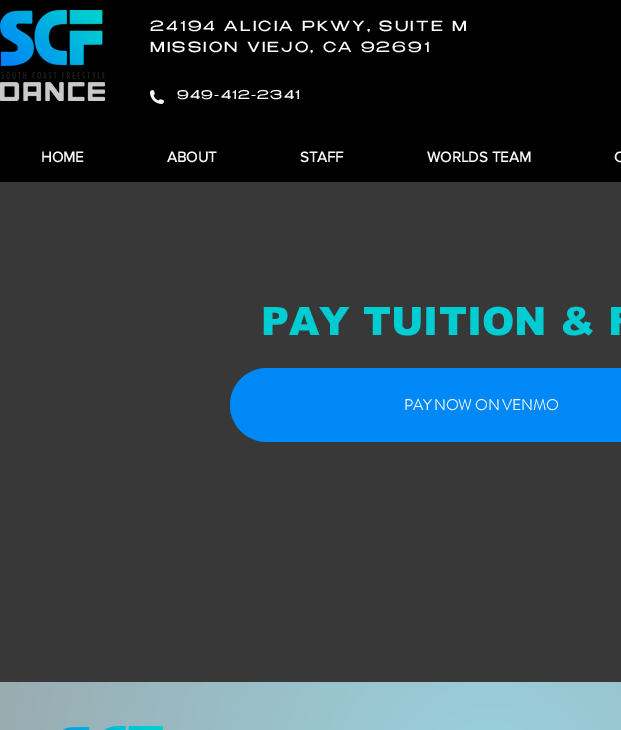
%!PS
<< /PageSize [621 730] >> setpagedevice
/m/moveto load def
/l/rlineto load def
/z/closepath load def
/f/fill load def
/q/gsave load def
/Q_/grestore load def
/C { dup -16 bitshift 255 div exch dup -8 bitshift 255 and 255 div exch 255 and 255 div setrgbcolor } def
/F { [ exch dup neg 0 0 3 -1 roll 0 0 ] selectfont } def
/T { moveto show } def
/R { rectfill } def
/Q { 5 dict begin { /r /h /w /y /x } { exch def } forall
  x r add y moveto x w add y 2 copy h add r arct x w add y h add x 1 index r arct
  x y h add x y r arct x y 2 copy exch w add exch r arct closepath end } def
/I { 5 dict begin { /h /w /y /x /name } { exch def } forall
  gsave x y translate w h scale
  w h 8 [w 0 0 h 0 0] name (r) file false 3 colorimage grestore end } def
0 730 translate 1 -1 scale
4 setmiterlimit
16#383838 C
0 0 621 730 R
16#000000 C
0 0 621 182 R
(1.rgb) 0 10 105 91 I
/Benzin-Regular 14 F
16#FAFAFA C
150 31 m 2.1 0 (24194 ALICIA PKWY, SUITE M) ashow
150 52 m 2.1 0 (MISSION VIEJO, CA 92691) ashow
(2.rgb) 150 90 14 14 I
/Benzin-Regular 12 F
177 99 m 1.25 0 (949-412-2341) ashow
/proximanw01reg-Bold 15 F
(HOME) 41 162 T
(ABOUT) 167 162 T
(STAFF) 300 162 T
(WORLDS TEAM) 427 162 T
(C) 614 162 T
/arial-Black 39 F
16#00CCD2 C
(PAY TUITION & F) 261 335 T
16#0088F7 C
230 368 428 74 37 Q f
/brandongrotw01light-Bold 15 F
16#FAFAFA C
(PAY NOW ON VENMO) 404 410 T
q 0 682 m 621 0 l 0 48 l -621 0 l z clip newpath 490 786 translate 501 501 scale
<< /ShadingType 3 /ColorSpace /DeviceRGB /Coords [0 0 0 0 0 1] /Extend [true true] /Function << /FunctionType 2 /Domain [0 1] /C0 [.6 .824 .875] /C1 [.6 .675 .69] /N 1 >> >> shfill Q_
(3.rgb) 62 726 102 4 I
showpage
